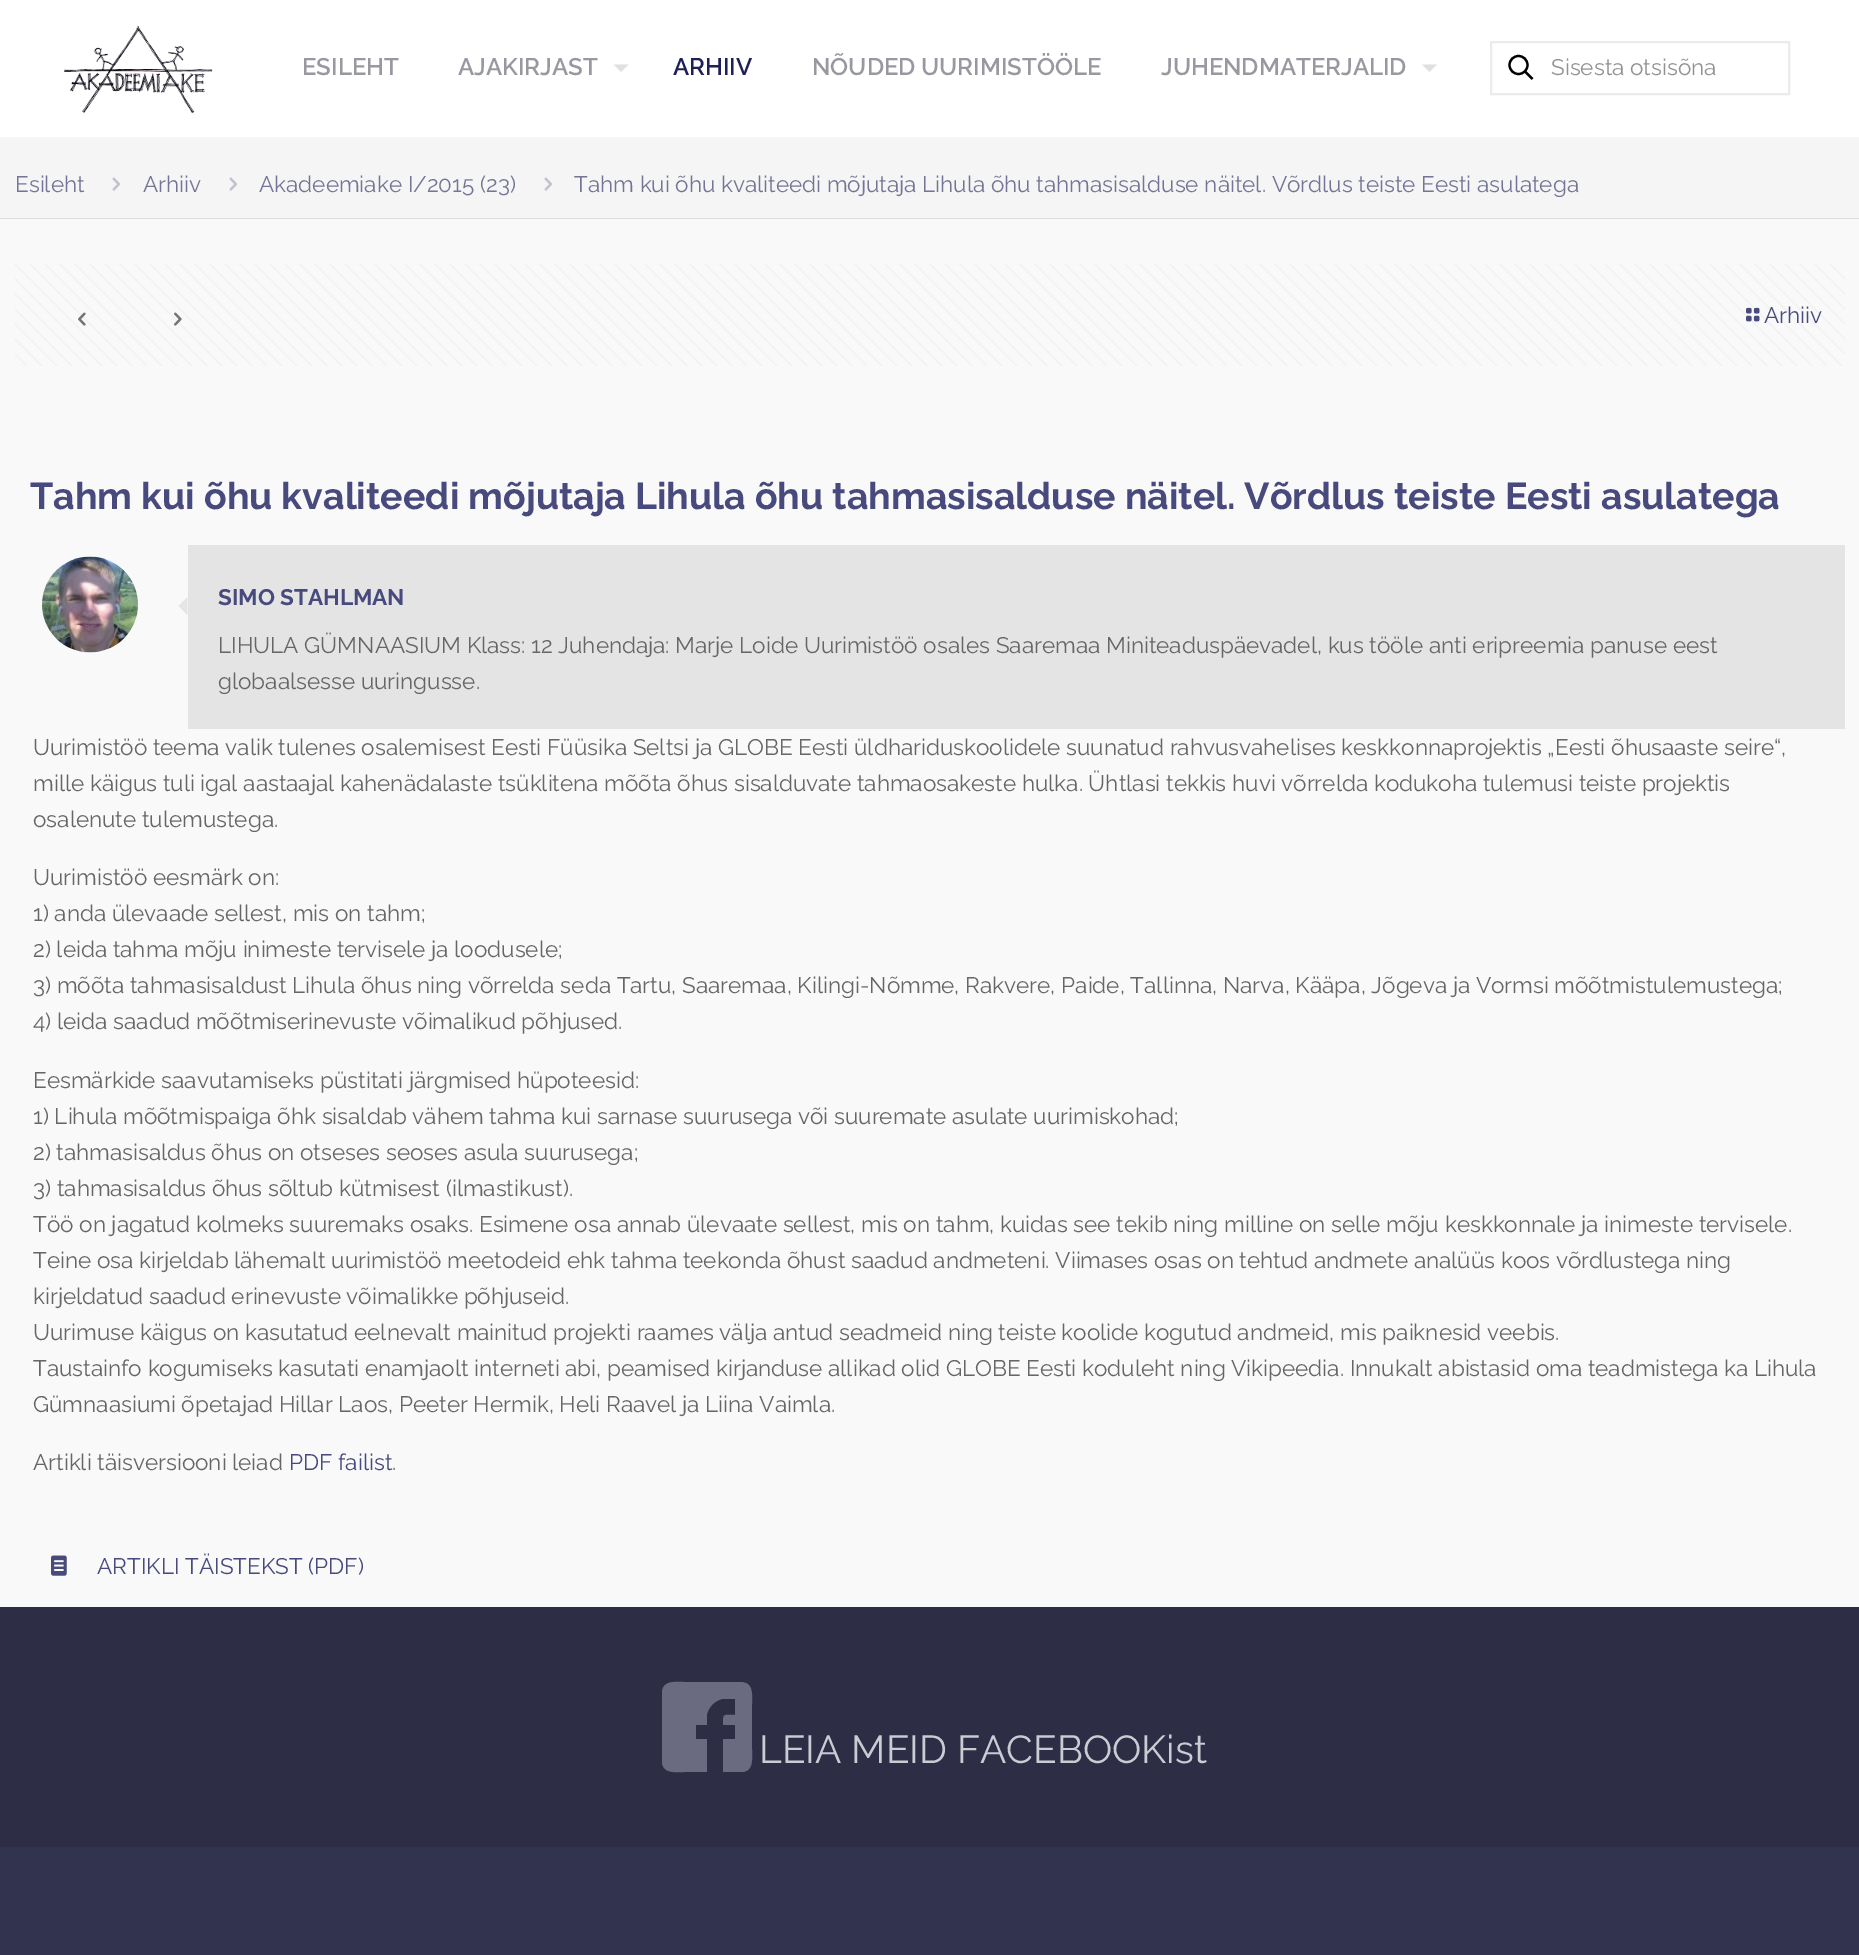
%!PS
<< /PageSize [1859 1955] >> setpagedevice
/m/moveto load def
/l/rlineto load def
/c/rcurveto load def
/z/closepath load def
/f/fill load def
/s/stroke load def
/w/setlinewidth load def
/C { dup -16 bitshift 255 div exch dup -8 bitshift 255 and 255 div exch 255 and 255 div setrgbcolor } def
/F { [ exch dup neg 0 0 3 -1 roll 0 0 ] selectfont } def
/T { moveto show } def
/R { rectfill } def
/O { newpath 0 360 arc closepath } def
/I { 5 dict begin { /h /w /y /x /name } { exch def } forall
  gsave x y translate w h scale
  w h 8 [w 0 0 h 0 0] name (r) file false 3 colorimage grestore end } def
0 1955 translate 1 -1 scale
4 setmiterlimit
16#FFFFFF C
0 0 1859 1955 R
(1.rgb) 63 25 150 89 I
/Raleway-SemiBold 24 F
16#9898A1 C
(ESILEHT) 302 75 T
(AJAKIRJAST) 458 75 T
16#E0E0E0 C
613.5 64.5 m 15 0 l -7.5 7.5 l z f
16#1E2057 C
(ARHIIV) 673 75 T
16#9898A1 C
(NÕUDED UURIMISTÖÖLE) 812 75 T
(JUHENDMATERJALID) 1161 75 T
16#E0E0E0 C
1422 64.5 m 15 0 l -7.5 7.5 l z f
16#EBEBEB C
2 w
1491 42 298 52 rectstroke
16#000000 C
2.2 w
1518.5 65 9 O s
1525 71.5 m 7.5 7.5 l s
/Raleway-Regular 22.5 F
16#929292 C
(Sisesta otsisõna) 1551 75 T
16#F5F5F5 C
0 137 1859 81 R
16#DDDDDD C
0 218 1859 1 R
16#747596 C
(Esileht) 15 192 T
(2.rgb) 112 177 8 14 I
(Arhiiv) 143 192 T
(2.rgb) 229 177 8 14 I
(Akadeemiake I/2015 \(23\)) 259 192 T
(2.rgb) 544 177 8 14 I
(Tahm kui õhu kvaliteedi mõjutaja Lihula õhu tahmasisalduse näitel. Võrdlus teiste Eesti asulatega) 574 192 T
16#F9F9F9 C
0 219 1859 1388 R
(3.rgb) 15 264 1830 102 I
(4.rgb) 78 312 8 14 I
(5.rgb) 174 312 8 14 I
(6.rgb) 1746 307 14 15 I
16#484A7D C
(Arhiiv) 1764 323 T
/Raleway-Bold 37.5 F
(Tahm kui õhu kvaliteedi mõjutaja Lihula õhu tahmasisalduse näitel. Võrdlus teiste Eesti asulatega) 30 509 T
(7.rgb) 42 556 96 97 I
16#E4E4E4 C
188 545 1657 184 R
16#E5E5E5 C
187.5 597 m 0 18 l -9 -9 l z f
/Raleway-Bold 22.5 F
16#484A7D C
(SIMO STAHLMAN) 218 605 T
/Raleway-Regular 22.5 F
16#666666 C
(LIHULA GÜMNAASIUM Klass: 12 Juhendaja: Marje Loide Uurimistöö osales Saaremaa Miniteaduspäevadel, kus tööle anti eripreemia panuse eest) 218 653 T
(globaalsesse uuringusse.) 218 689 T
(Uurimistöö teema valik tulenes osalemisest Eesti Füüsika Seltsi ja GLOBE Eesti üldhariduskoolidele suunatud rahvusvahelises keskkonnaprojektis „Eesti õhusaaste seire“,) 33 755 T
(mille käigus tuli igal aastaajal kahenädalaste tsüklitena mõõta õhus sisalduvate tahmaosakeste hulka. Ühtlasi tekkis huvi võrrelda kodukoha tulemusi teiste projektis) 33 791 T
(osalenute tulemustega.) 33 827 T
(Uurimistöö eesmärk on:) 33 885 T
(1\) anda ülevaade sellest, mis on tahm;) 33 921 T
(2\) leida tahma mõju inimeste tervisele ja loodusele;) 33 957 T
(3\) mõõta tahmasisaldust Lihula õhus ning võrrelda seda Tartu, Saaremaa, Kilingi-Nõmme, Rakvere, Paide, Tallinna, Narva, Kääpa, Jõgeva ja Vormsi mõõtmistulemustega;) 33 993 T
(4\) leida saadud mõõtmiserinevuste võimalikud põhjused.) 33 1029 T
(Eesmärkide saavutamiseks püstitati järgmised hüpoteesid:) 33 1088 T
(1\) Lihula mõõtmispaiga õhk sisaldab vähem tahma kui sarnase suurusega või suuremate asulate uurimiskohad;) 33 1124 T
(2\) tahmasisaldus õhus on otseses seoses asula suurusega;) 33 1160 T
(3\) tahmasisaldus õhus sõltub kütmisest \(ilmastikust\).) 33 1196 T
(Töö on jagatud kolmeks suuremaks osaks. Esimene osa annab ülevaate sellest, mis on tahm, kuidas see tekib ning milline on selle mõju keskkonnale ja inimeste tervisele.) 33 1232 T
(Teine osa kirjeldab lähemalt uurimistöö meetodeid ehk tahma teekonda õhust saadud andmeteni. Viimases osas on tehtud andmete analüüs koos võrdlustega ning) 33 1268 T
(kirjeldatud saadud erinevuste võimalikke põhjuseid.) 33 1304 T
(Uurimuse käigus on kasutatud eelnevalt mainitud projekti raames välja antud seadmeid ning teiste koolide kogutud andmeid, mis paiknesid veebis.) 33 1340 T
(Taustainfo kogumiseks kasutati enamjaolt interneti abi, peamised kirjanduse allikad olid GLOBE Eesti koduleht ning Vikipeedia. Innukalt abistasid oma teadmistega ka Lihula) 33 1376 T
(Gümnaasiumi õpetajad Hillar Laos, Peeter Hermik, Heli Raavel ja Liina Vaimla.) 33 1412 T
(Artikli täisversiooni leiad) 33 1470 T
16#484A7D C
(PDF failist) 289 1470 T
16#666666 C
(.) 392 1470 T
(8.rgb) 51 1555 16 21 I
16#484A7D C
(ARTIKLI TÄISTEKST \(PDF\)) 97 1574 T
16#32334E C
0 1847 1859 108 R
16#2D2E46 C
0 1607 1859 240 R
16#6A6B81 C
740 1682 m 14 0 12 13 12 22 c 0 45 l 0 9 2 21 -9 23 c -20 0 l 0 -33 l 12 0 l 0 -14 l -12 0 l 0 -12 0 -10 12 -10 c 0 -16 l -13 0 l -8 2 -13 8 -15 15 c 0 11 l -11 0 l 0 14 l 11 0 l 0 33 l -23 0 l -8 0 -20 2 -22 -9 c 0 -71 l 1 -12 14 -10 22 -10 c z f
/Raleway-Regular 39 F
16#CBCCD3 C
(LEIA MEID FACEBOOKist) 759 1763 T
showpage
